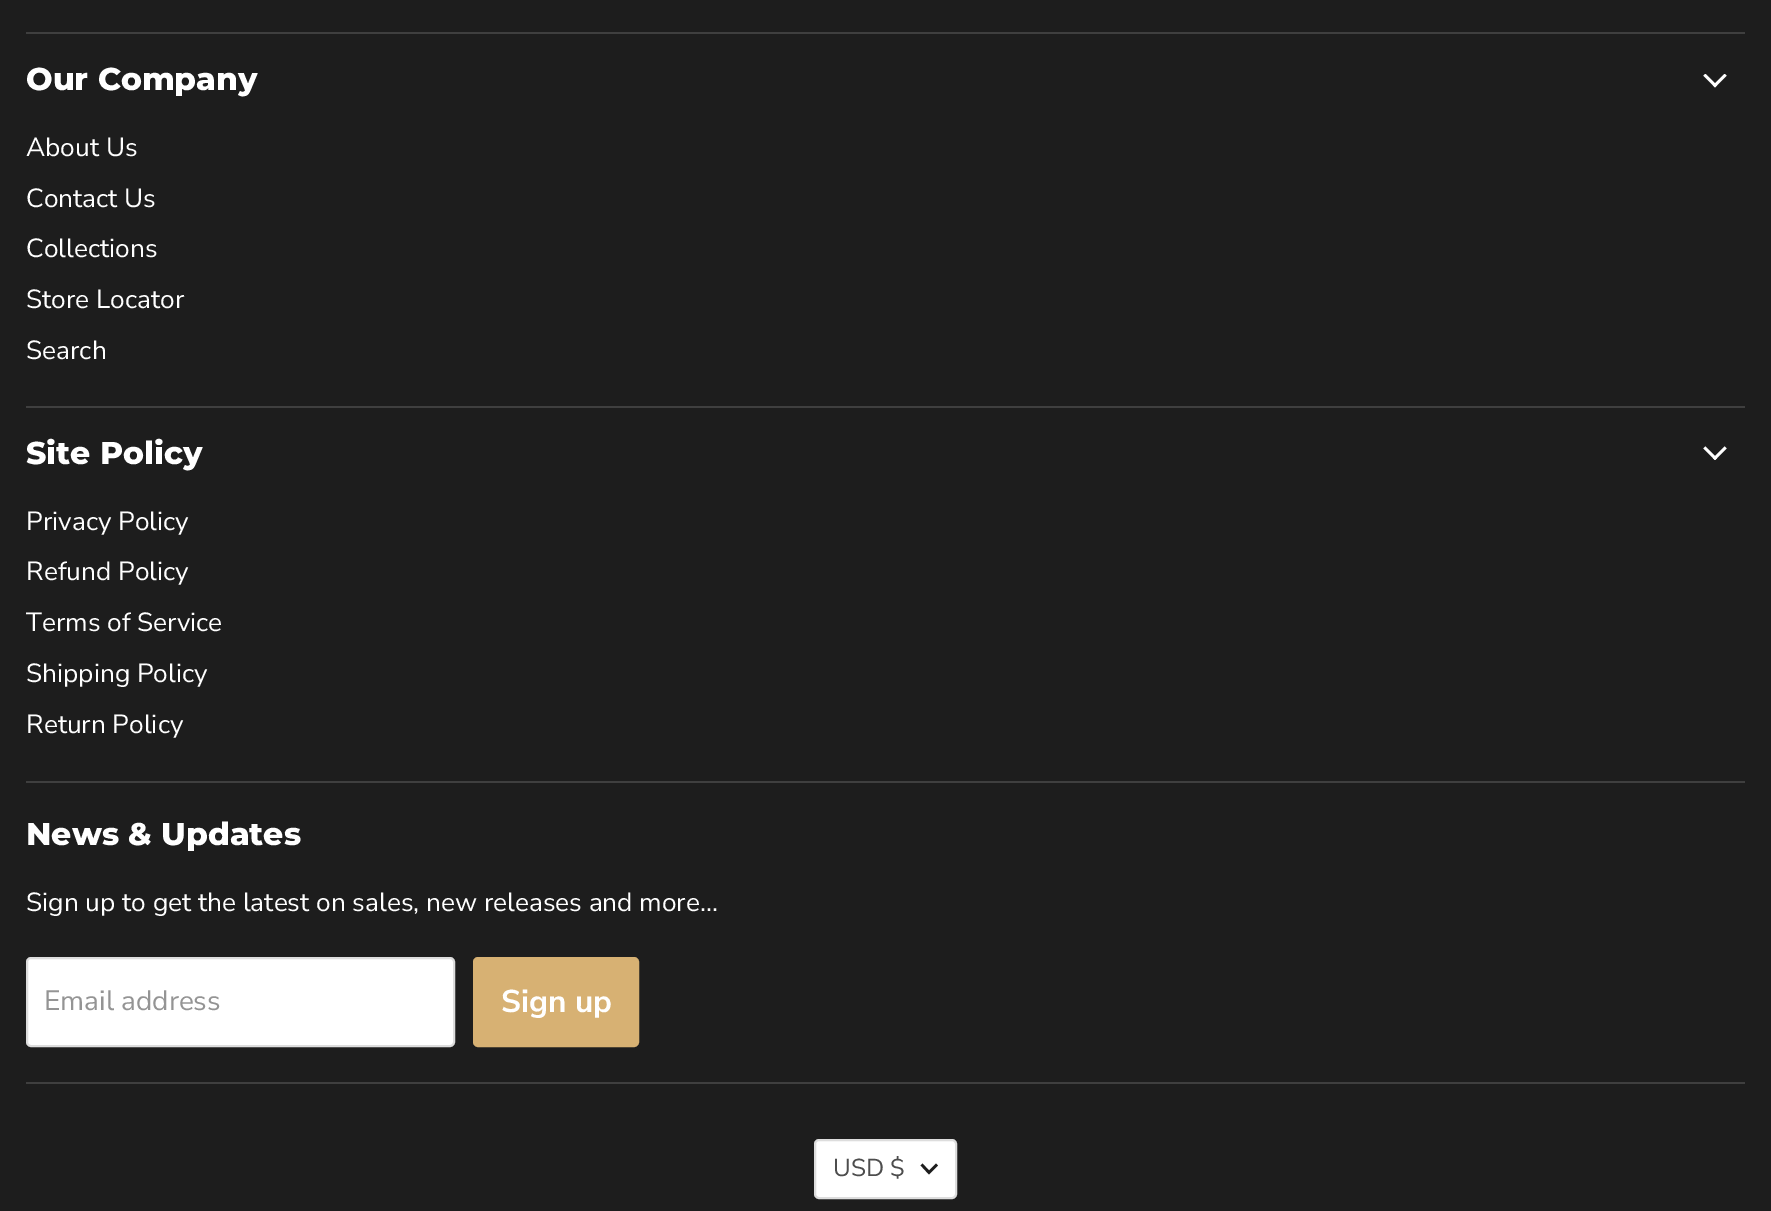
%!PS
<< /PageSize [1771 1211] >> setpagedevice
/m/moveto load def
/l/rlineto load def
/f/fill load def
/s/stroke load def
/q/gsave load def
/Q_/grestore load def
/w/setlinewidth load def
/C { dup -16 bitshift 255 div exch dup -8 bitshift 255 and 255 div exch 255 and 255 div setrgbcolor } def
/F { [ exch dup neg 0 0 3 -1 roll 0 0 ] selectfont } def
/T { moveto show } def
/R { rectfill } def
/Q { 5 dict begin { /r /h /w /y /x } { exch def } forall
  x r add y moveto x w add y 2 copy h add r arct x w add y h add x 1 index r arct
  x y h add x y r arct x y 2 copy exch w add exch r arct closepath end } def
/I { 5 dict begin { /h /w /y /x /name } { exch def } forall
  gsave x y translate w h scale
  w h 8 [w 0 0 h 0 0] name (r) file false 3 colorimage grestore end } def
0 1211 translate 1 -1 scale
4 setmiterlimit
16#1D1D1D C
0 0 1771 1211 R
16#3F3F3F C
26 32 1719 2 R
26 406 1719 2 R
/Montserrat-ExtraBold 31.5 F
16#FFFFFF C
(Our Company) 26 90 T
(1.rgb) 1703 74 24 14 I
/NunitoSans-Regular 26.25 F
(About Us) 26 156 T
(Contact Us) 26 207 T
(Collections) 26 257 T
(Store Locator) 26 308 T
(Search) 26 359 T
16#3F3F3F C
26 781 1719 2 R
/Montserrat-ExtraBold 31.5 F
16#FFFFFF C
(Site Policy) 26 464 T
(2.rgb) 1703 446 24 14 I
/NunitoSans-Regular 26.25 F
(Privacy Policy) 26 530 T
(Refund Policy) 26 580 T
(Terms of Service) 26 631 T
(Shipping Policy) 26 682 T
(Return Policy) 26 733 T
16#3F3F3F C
26 1082 1719 2 R
/Montserrat-ExtraBold 31.5 F
16#FFFFFF C
(News & Updates) 26 845 T
/NunitoSans-Regular 26.25 F
(Sign up to get the latest on sales, new releases and more…) 26 911 T
27 958 427 88 4 Q q f Q_
16#DDDDDD C
2 w
s
/NunitoSans-Regular 28 F
16#949494 C
(Email address) 44 1010 T
16#D7B173 C
474 958 164 88 4 Q q f Q_
s
/NunitoSans-Bold 31.5 F
16#FFFFFF C
(Sign up) 501 1012 T
815 1140 141 58 4 Q q f Q_
16#DDDDDD C
s
/NunitoSans-Regular 24.5 F
16#4D4D4D C
(USD $) 833 1176 T
16#1D1D1D C
2.7 w
2 setlinecap
929 1172.5 m 7 -7 l 929 1172.5 m -6.5 -7 l s
showpage
